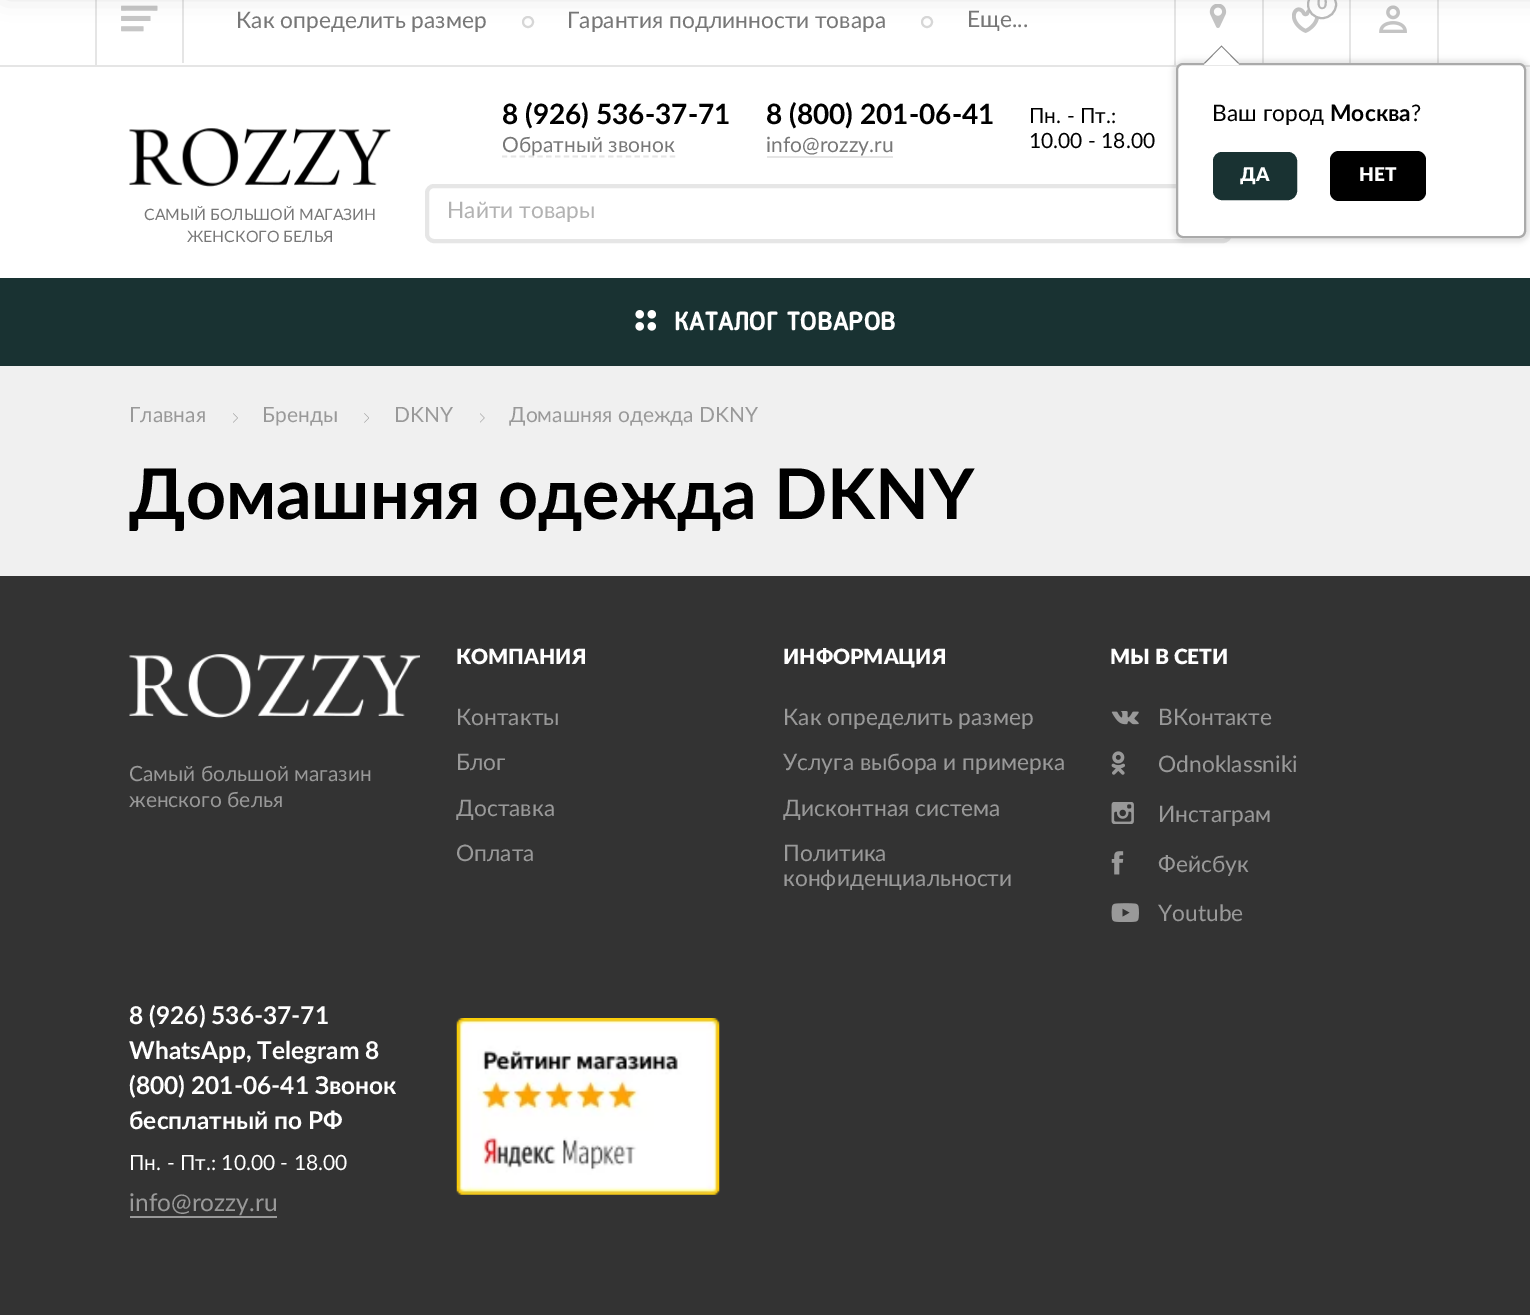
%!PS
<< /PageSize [1530 1315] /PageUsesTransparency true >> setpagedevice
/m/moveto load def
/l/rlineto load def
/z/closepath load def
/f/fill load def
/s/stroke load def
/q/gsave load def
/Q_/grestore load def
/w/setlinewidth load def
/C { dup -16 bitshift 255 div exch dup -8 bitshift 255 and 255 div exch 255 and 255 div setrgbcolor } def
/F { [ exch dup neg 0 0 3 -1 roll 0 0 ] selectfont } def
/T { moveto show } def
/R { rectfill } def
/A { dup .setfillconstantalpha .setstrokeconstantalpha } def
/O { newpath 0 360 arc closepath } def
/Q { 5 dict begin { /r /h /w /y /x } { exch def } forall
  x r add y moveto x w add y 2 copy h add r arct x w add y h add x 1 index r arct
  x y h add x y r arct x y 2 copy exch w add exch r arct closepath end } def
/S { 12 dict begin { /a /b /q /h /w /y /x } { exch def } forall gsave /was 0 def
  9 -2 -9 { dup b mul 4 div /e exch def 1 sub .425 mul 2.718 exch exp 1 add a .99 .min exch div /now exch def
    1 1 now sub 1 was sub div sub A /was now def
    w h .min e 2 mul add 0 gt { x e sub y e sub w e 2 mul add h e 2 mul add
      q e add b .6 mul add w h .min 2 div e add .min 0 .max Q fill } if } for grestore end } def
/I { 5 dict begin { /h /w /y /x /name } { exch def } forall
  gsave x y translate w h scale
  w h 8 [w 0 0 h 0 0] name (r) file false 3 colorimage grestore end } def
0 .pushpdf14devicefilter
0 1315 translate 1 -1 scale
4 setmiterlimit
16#F0F0F0 C
0 0 1530 1315 R
16#FFFFFF C
0 0 1530 65 R
16#E5E5E5 C
0 65 1530 2 R
1437 0 2 65 R
95 0 2 65 R
182 0 2 63 R
(1.rgb) 121 5 37 27 I
/Lato-Regular 22.75 F
16#777777 C
(Как определить размер) 236 28 T
16#D7D7D7 C
2 w
528 22 5 O s
16#777777 C
(Гарантия подлинности товара) 567 28 T
16#D7D7D7 C
927 22 5 O s
16#777777 C
(Еще...) 967 27 T
16#E5E5E5 C
1262 0 2 65 R
(2.rgb) 1292 7 27 26 I
16#FFFFFF C
1308 -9 28 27 13.5 Q q f Q_
16#BABABA C
s
/Lato-Bold 18 F
16#BCBCBC C
(0) 1317 9 T
16#E5E5E5 C
1349 0 2 65 R
(3.rgb) 1379 5 28 28 I
1174 0 2 65 R
(4.rgb) 1209 4 18 24 I
16#FFFFFF C
0 67 1530 211 R
16#E6E6E6 C
4 w
427 186 803 55 7 Q s
16#000000 C
1173 60 357 182 11 2.5 .1 S
16#FFFFFF C
1177 64 348 173 6 Q q f Q_
16#AAAAAA C
2 w
s
16#808080 C
1239 63 m -35 0 l 17.5 -17.5 l z f
16#FFFFFF C
1239 65 m -35 0 l 17.5 -18 l z f
/Lato-Regular 22.75 F
16#000000 C
(Ваш город) 1212 121 T
/Lato-Bold 22.75 F
(Москва) 1330 121 T
/Lato-Regular 22.75 F
(?) 1411 121 T
16#193232 C
1214 153 82 46 8 Q q f Q_
s
/Lato-Black 19 F
16#FFFFFF C
(ДА) 1240 181 T
16#000000 C
1330 151 96 50 9 Q f
16#FFFFFF C
(НЕТ) 1359 181 T
(5.rgb) 129 128 262 59 I
/Lato-Regular 15.75 F
16#777777 C
(САМЫЙ БОЛЬШОЙ МАГАЗИН) 144 220 T
(ЖЕНСКОГО БЕЛЬЯ) 187 242 T
/Lato-Bold 28 F
16#000000 C
(8 \(926\) 536-37-71) 502 124 T
16#E5E5E5 C
1.8 w
[5.25 3.59] 0 setdash
502 156.5 m 173.5 0 l s
/Lato-Regular 21 F
16#777777 C
(Обратный звонок) 502 152 T
/Lato-Bold 28 F
16#000000 C
(8 \(800\) 201-06-41) 766 124 T
/Lato-Regular 21 F
16#777777 C
(info@rozzy.ru) 766 152 T
16#E5E5E5 C
767 156 126 2 R
16#000000 C
(Пн. - Пт.:) 1029 123 T
(10.00 - 18.00) 1029 148 T
/Lato-Regular 22.75 F
16#B2B2B2 C
(Найти товары) 447 218 T
16#193232 C
0 278 1530 88 R
(6.rgb) 635 310 21 21 I
/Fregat-Bold 26.25 F
16#FFFFFF C
(КАТАЛОГ ТОВАРОВ) 674 330 T
16#000000 C
5 -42 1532 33 0 14 .18 S
/Lato-Regular 21 F
16#999999 C
(Главная) 129 422 T
(7.rgb) 233 413 5 10 I
(Бренды) 262 422 T
(8.rgb) 364 413 5 10 I
(DKNY) 394 422 T
(9.rgb) 480 413 5 10 I
(Домашняя одежда DKNY) 509 422 T
/Lato-Bold 70 F
16#000000 C
(Домашняя одежда DKNY) 129 519 T
16#333333 C
0 576 1530 739 R
(10.rgb) 129 654 291 65 I
/Lato-Regular 21 F
16#999999 C
(Cамый большой магазин) 129 781 T
(женского белья) 129 807 T
/Lato-Black 21 F
16#FFFFFF C
(КОМПАНИЯ) 456 664 T
/Lato-Regular 22.75 F
16#999999 C
(Контакты) 456 725 T
(Блог) 456 770 T
(Доставка) 456 816 T
(Оплата) 456 861 T
/Lato-Black 21 F
16#FFFFFF C
(ИНФОРМАЦИЯ) 783 664 T
/Lato-Regular 22.75 F
16#999999 C
(Как определить размер) 783 725 T
(Услуга выбора и примерка) 783 770 T
(Дисконтная система) 783 816 T
(Политика) 783 861 T
(конфиденциальности) 783 886 T
/Lato-Black 21 F
16#FFFFFF C
(МЫ В СЕТИ) 1110 664 T
(11.rgb) 1111 711 28 14 I
/Lato-Regular 22.75 F
16#999999 C
(ВКонтакте) 1158 725 T
(12.rgb) 1111 751 14 24 I
(Odnoklassniki) 1158 772 T
(13.rgb) 1111 802 23 22 I
(Инстаграм) 1158 822 T
(14.rgb) 1111 851 13 24 I
(Фейсбук) 1158 872 T
(15.rgb) 1111 903 28 19 I
(Youtube) 1158 921 T
/Lato-Bold 24.5 F
16#FFFFFF C
(8 \(926\) 536-37-71) 129 1024 T
(WhatsApp, Telegram 8) 129 1059 T
(\(800\) 201-06-41 Звонок) 129 1094 T
(бесплатный по РФ) 129 1129 T
/Lato-Regular 21 F
(Пн. - Пт.: 10.00 - 18.00) 129 1170 T
/Lato-Regular 24.5 F
16#999999 C
(info@rozzy.ru) 129 1211 T
130 1216 147 2 R
(16.rgb) 456 1018 264 177 I
.poppdf14devicefilter showpage
